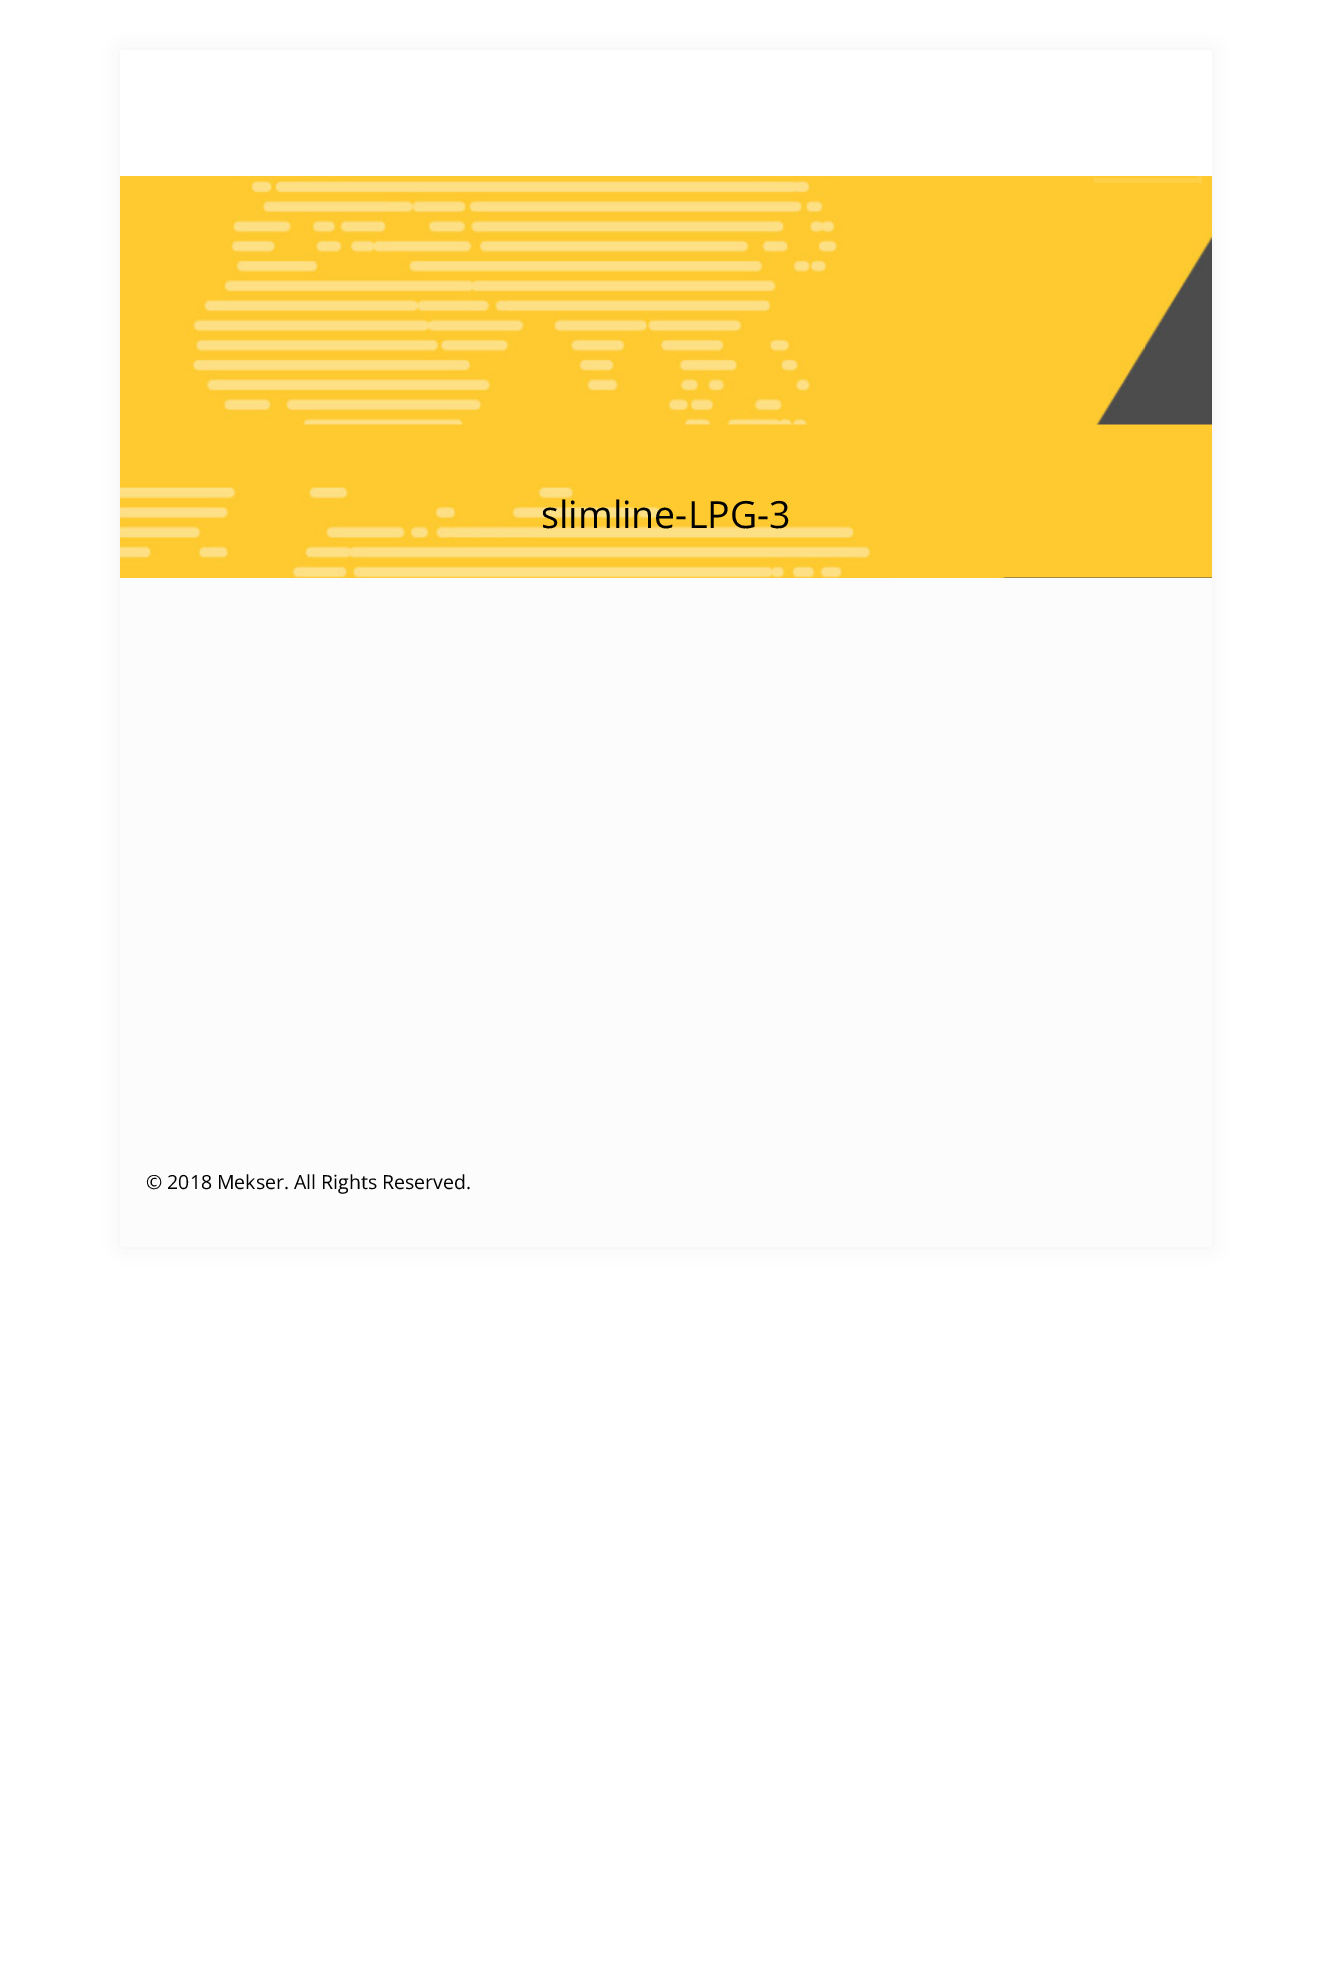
%!PS
<< /PageSize [1332 1974] /PageUsesTransparency true >> setpagedevice
/m/moveto load def
/l/rlineto load def
/z/closepath load def
/f/fill load def
/C { dup -16 bitshift 255 div exch dup -8 bitshift 255 and 255 div exch 255 and 255 div setrgbcolor } def
/F { [ exch dup neg 0 0 3 -1 roll 0 0 ] selectfont } def
/T { moveto show } def
/R { rectfill } def
/A { dup .setfillconstantalpha .setstrokeconstantalpha } def
/Q { 5 dict begin { /r /h /w /y /x } { exch def } forall
  x r add y moveto x w add y 2 copy h add r arct x w add y h add x 1 index r arct
  x y h add x y r arct x y 2 copy exch w add exch r arct closepath end } def
/S { 12 dict begin { /a /b /q /h /w /y /x } { exch def } forall gsave /was 0 def
  9 -2 -9 { dup b mul 4 div /e exch def 1 sub .425 mul 2.718 exch exp 1 add a .99 .min exch div /now exch def
    1 1 now sub 1 was sub div sub A /was now def
    w h .min e 2 mul add 0 gt { x e sub y e sub w e 2 mul add h e 2 mul add
      q e add b .6 mul add w h .min 2 div e add .min 0 .max Q fill } if } for grestore end } def
/I { 5 dict begin { /h /w /y /x /name } { exch def } forall
  gsave x y translate w h scale
  w h 8 [w 0 0 h 0 0] name (r) file false 3 colorimage grestore end } def
0 .pushpdf14devicefilter
0 1974 translate 1 -1 scale
4 setmiterlimit
16#FFFFFF C
0 0 1332 1974 R
16#000000 C
120 50 1092 1197 0 11 .06 S
16#FCFCFC C
120 578 1092 669 R
(1.rgb) 120 176 1092 402 I
16#FFFFFF C
120 50 1092 126 R
0.1 A
1202 54 m 0 129 l -5 -5 l 0 -120 l z f
1202 183 m -108 0 l 1 -5 l 102 0 l z f
1094 183 m 0 -129 l 1 4 l 0 120 l z f
1 A
(2.rgb) 120 424 1092 154 I
/OpenSans-Regular 37.5 F
16#000000 C
(slimline-LPG-3) 541 528 T
/OpenSans-Regular 19.5 F
(© 2018 Mekser. All Rights Reserved.) 146 1189 T
.poppdf14devicefilter showpage
